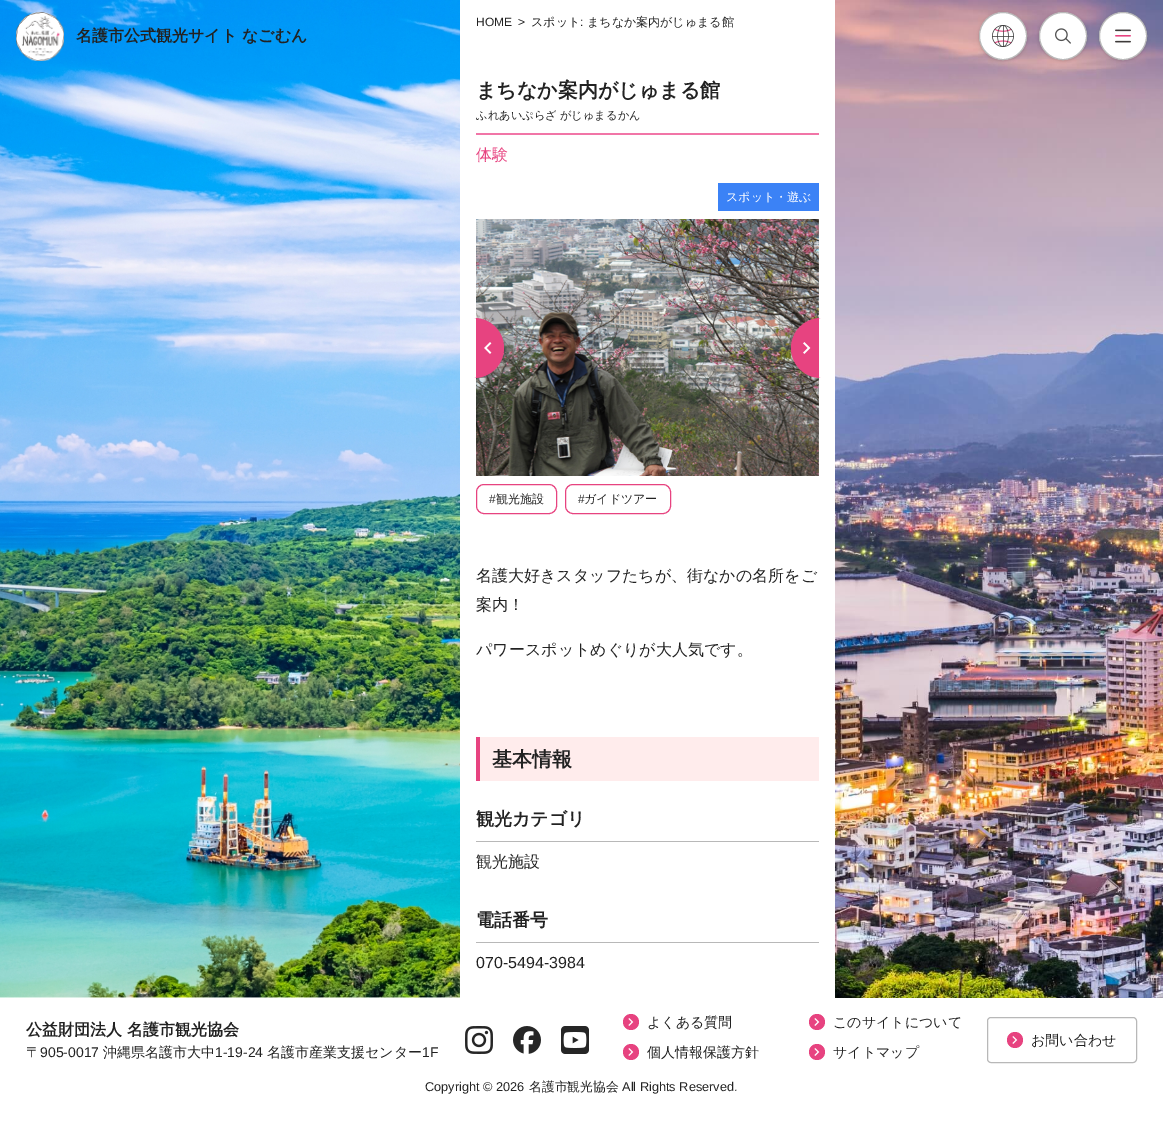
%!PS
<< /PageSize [1163 1122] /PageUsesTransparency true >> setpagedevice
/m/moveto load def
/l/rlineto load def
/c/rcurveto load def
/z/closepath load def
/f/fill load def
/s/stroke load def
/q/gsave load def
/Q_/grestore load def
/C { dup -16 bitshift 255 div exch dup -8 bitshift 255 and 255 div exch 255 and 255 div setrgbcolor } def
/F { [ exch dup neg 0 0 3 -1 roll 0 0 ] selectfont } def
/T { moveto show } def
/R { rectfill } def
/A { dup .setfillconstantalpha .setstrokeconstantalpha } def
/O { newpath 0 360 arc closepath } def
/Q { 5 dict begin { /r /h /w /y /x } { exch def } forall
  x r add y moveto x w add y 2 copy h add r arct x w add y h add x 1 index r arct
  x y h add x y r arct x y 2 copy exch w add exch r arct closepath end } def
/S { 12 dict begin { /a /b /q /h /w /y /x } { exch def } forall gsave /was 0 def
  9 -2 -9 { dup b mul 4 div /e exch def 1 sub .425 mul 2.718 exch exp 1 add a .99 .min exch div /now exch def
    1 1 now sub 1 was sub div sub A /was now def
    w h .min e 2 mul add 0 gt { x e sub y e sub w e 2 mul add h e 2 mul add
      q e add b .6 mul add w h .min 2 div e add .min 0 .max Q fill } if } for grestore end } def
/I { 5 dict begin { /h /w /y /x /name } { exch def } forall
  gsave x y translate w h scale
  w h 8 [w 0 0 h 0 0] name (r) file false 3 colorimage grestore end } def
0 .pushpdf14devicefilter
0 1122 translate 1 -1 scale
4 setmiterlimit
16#FFFFFF C
0 0 1163 1122 R
(5.rgb) 0 0 460 998 I
(1.rgb) 16 12 48 49 I
/WenQuanYiZenHei-Bold 16 F
16#222222 C
(名護市公式観光サイト なごむん) 76 41 T
(9.rgb) 835 0 328 998 I
16#000000 C
980 14 46 46 23 1 .1 S
979 13 48 48 24 1.5 .1 S
16#FFFFFF C
1003 36 23.5 O q f Q_
16#B8B8B8 C
s
(2.rgb) 992 25 22 22 I
16#000000 C
1040 14 46 46 23 1 .1 S
1039 13 48 48 24 1.5 .1 S
16#FFFFFF C
1063 36 23.5 O q f Q_
16#B8B8B8 C
s
(3.rgb) 1055 28 16 16 I
16#000000 C
1100 14 46 46 23 1 .1 S
1099 13 48 48 24 1.5 .1 S
16#FFFFFF C
1123 36 23.5 O q f Q_
16#B8B8B8 C
s
(4.rgb) 1115 29 16 14 I
/LiberationSans-Regular 12 F
16#222222 C
(HOME) 476 26 T
(>) 518 26 T
/WenQuanYiZenHei-Medium 12 F
(スポット) 531 26 T
/LiberationSans-Regular 12 F
(:) 580 26 T
/WenQuanYiZenHei-Medium 12 F
(まちなか案内がじゅまる館) 587 26 T
16#F175A7 C
476 133 343 2 R
/WenQuanYiZenHei-Bold 20 F
16#222222 C
(まちなか案内がじゅまる館) 476 97 T
/WenQuanYiZenHei-Medium 11.25 F
(ふれあいぷらざ がじゅまるかん) 476 119 T
/WenQuanYiZenHei-Medium 16 F
16#E74380 C
(体験) 476 160 T
16#3B82F6 C
718 183 101 28 R
/WenQuanYiZenHei-Medium 12 F
16#FFFFFF C
(スポット・遊ぶ) 726 201 T
(6.rgb) 476 219 343 257 I
16#E74380 C
476 318 m -2 0 l 16.5 0 30 13.5 30 30 c 0 16.5 -13.5 30 -30 30 c 2 0 l z f
(7.rgb) 484 342 8 12 I
821 318 m -2 0 l 0 60 l 2 0 l -16.5 0 -30 -13.5 -30 -30 c 0 -16.5 13.5 -30 30 -30 c z f
(8.rgb) 803 342 8 12 I
476.5 484.5 80 29 7.5 Q s
/LiberationSans-Regular 12 F
16#222222 C
(#) 489 503 T
/WenQuanYiZenHei-Medium 12 F
(観光施設) 496 503 T
16#E74380 C
565.5 484.5 105 29 7.5 Q s
/LiberationSans-Regular 12 F
16#222222 C
(#) 578 503 T
/WenQuanYiZenHei-Medium 12 F
(ガイドツアー) 584 503 T
/WenQuanYiZenHei-Medium 16 F
(名護大好きスタッフたちが、街なかの名所をご) 476 581 T
(案内！) 476 610 T
(パワースポットめぐりが大人気です。) 476 655 T
16#FFECEC C
480 737 339 44 R
16#E74380 C
476 737 4 44 R
/WenQuanYiZenHei-Bold 20 F
16#222222 C
(基本情報) 492 766 T
16#B8B8B8 C
476 841 343 1 R
/WenQuanYiZenHei-Bold 18 F
16#222222 C
(観光カテゴリ) 476 825 T
/WenQuanYiZenHei-Medium 16 F
(観光施設) 476 867 T
16#B8B8B8 C
476 942 343 1 R
/WenQuanYiZenHei-Bold 18 F
16#222222 C
(電話番号) 476 926 T
/LiberationSans-Regular 16 F
(070-5494-3984) 476 968 T
/WenQuanYiZenHei-Bold 16 F
(公益財団法人 名護市観光協会) 26 1035 T
/WenQuanYiZenHei-Medium 14 F
(〒) 26 1057 T
/LiberationSans-Regular 14 F
(905-0017) 40 1057 T
/WenQuanYiZenHei-Medium 14 F
(沖縄県名護市大中) 103 1057 T
/LiberationSans-Regular 14 F
(1-19-24) 215 1057 T
/WenQuanYiZenHei-Medium 14 F
(名護市産業支援センター) 267 1057 T
/LiberationSans-Regular 14 F
(1F) 422 1057 T
(10.rgb) 465 1026 28 28 I
(11.rgb) 513 1026 28 28 I
(12.rgb) 561 1026 28 28 I
16#E74380 C
631 1022 8 O f
(13.rgb) 628 1018 6 8 I
/WenQuanYiZenHei-Medium 14 F
16#222222 C
(よくある質問) 647 1027 T
16#E74380 C
817 1022 8 O f
(13.rgb) 814 1018 6 8 I
16#222222 C
(このサイトについて) 833 1027 T
16#E74380 C
631 1052 8 O f
(13.rgb) 628 1048 6 8 I
16#222222 C
(個人情報保護方針) 647 1057 T
16#E74380 C
817 1052 8 O f
(13.rgb) 814 1048 6 8 I
16#222222 C
(サイトマップ) 833 1057 T
16#B8B8B8 C
987.5 1017.5 149 45 3.5 Q s
16#E74380 C
1015 1040 8 O f
(13.rgb) 1012 1036 6 8 I
16#222222 C
(お問い合わせ) 1031 1045 T
/LiberationSans-Regular 12.75 F
(Copyright © 2026) 425 1091 T
/WenQuanYiZenHei-Medium 12.75 F
(名護市観光協会) 529 1091 T
/LiberationSans-Regular 12.75 F
(All Rights Reserved.) 622 1091 T
.poppdf14devicefilter showpage
